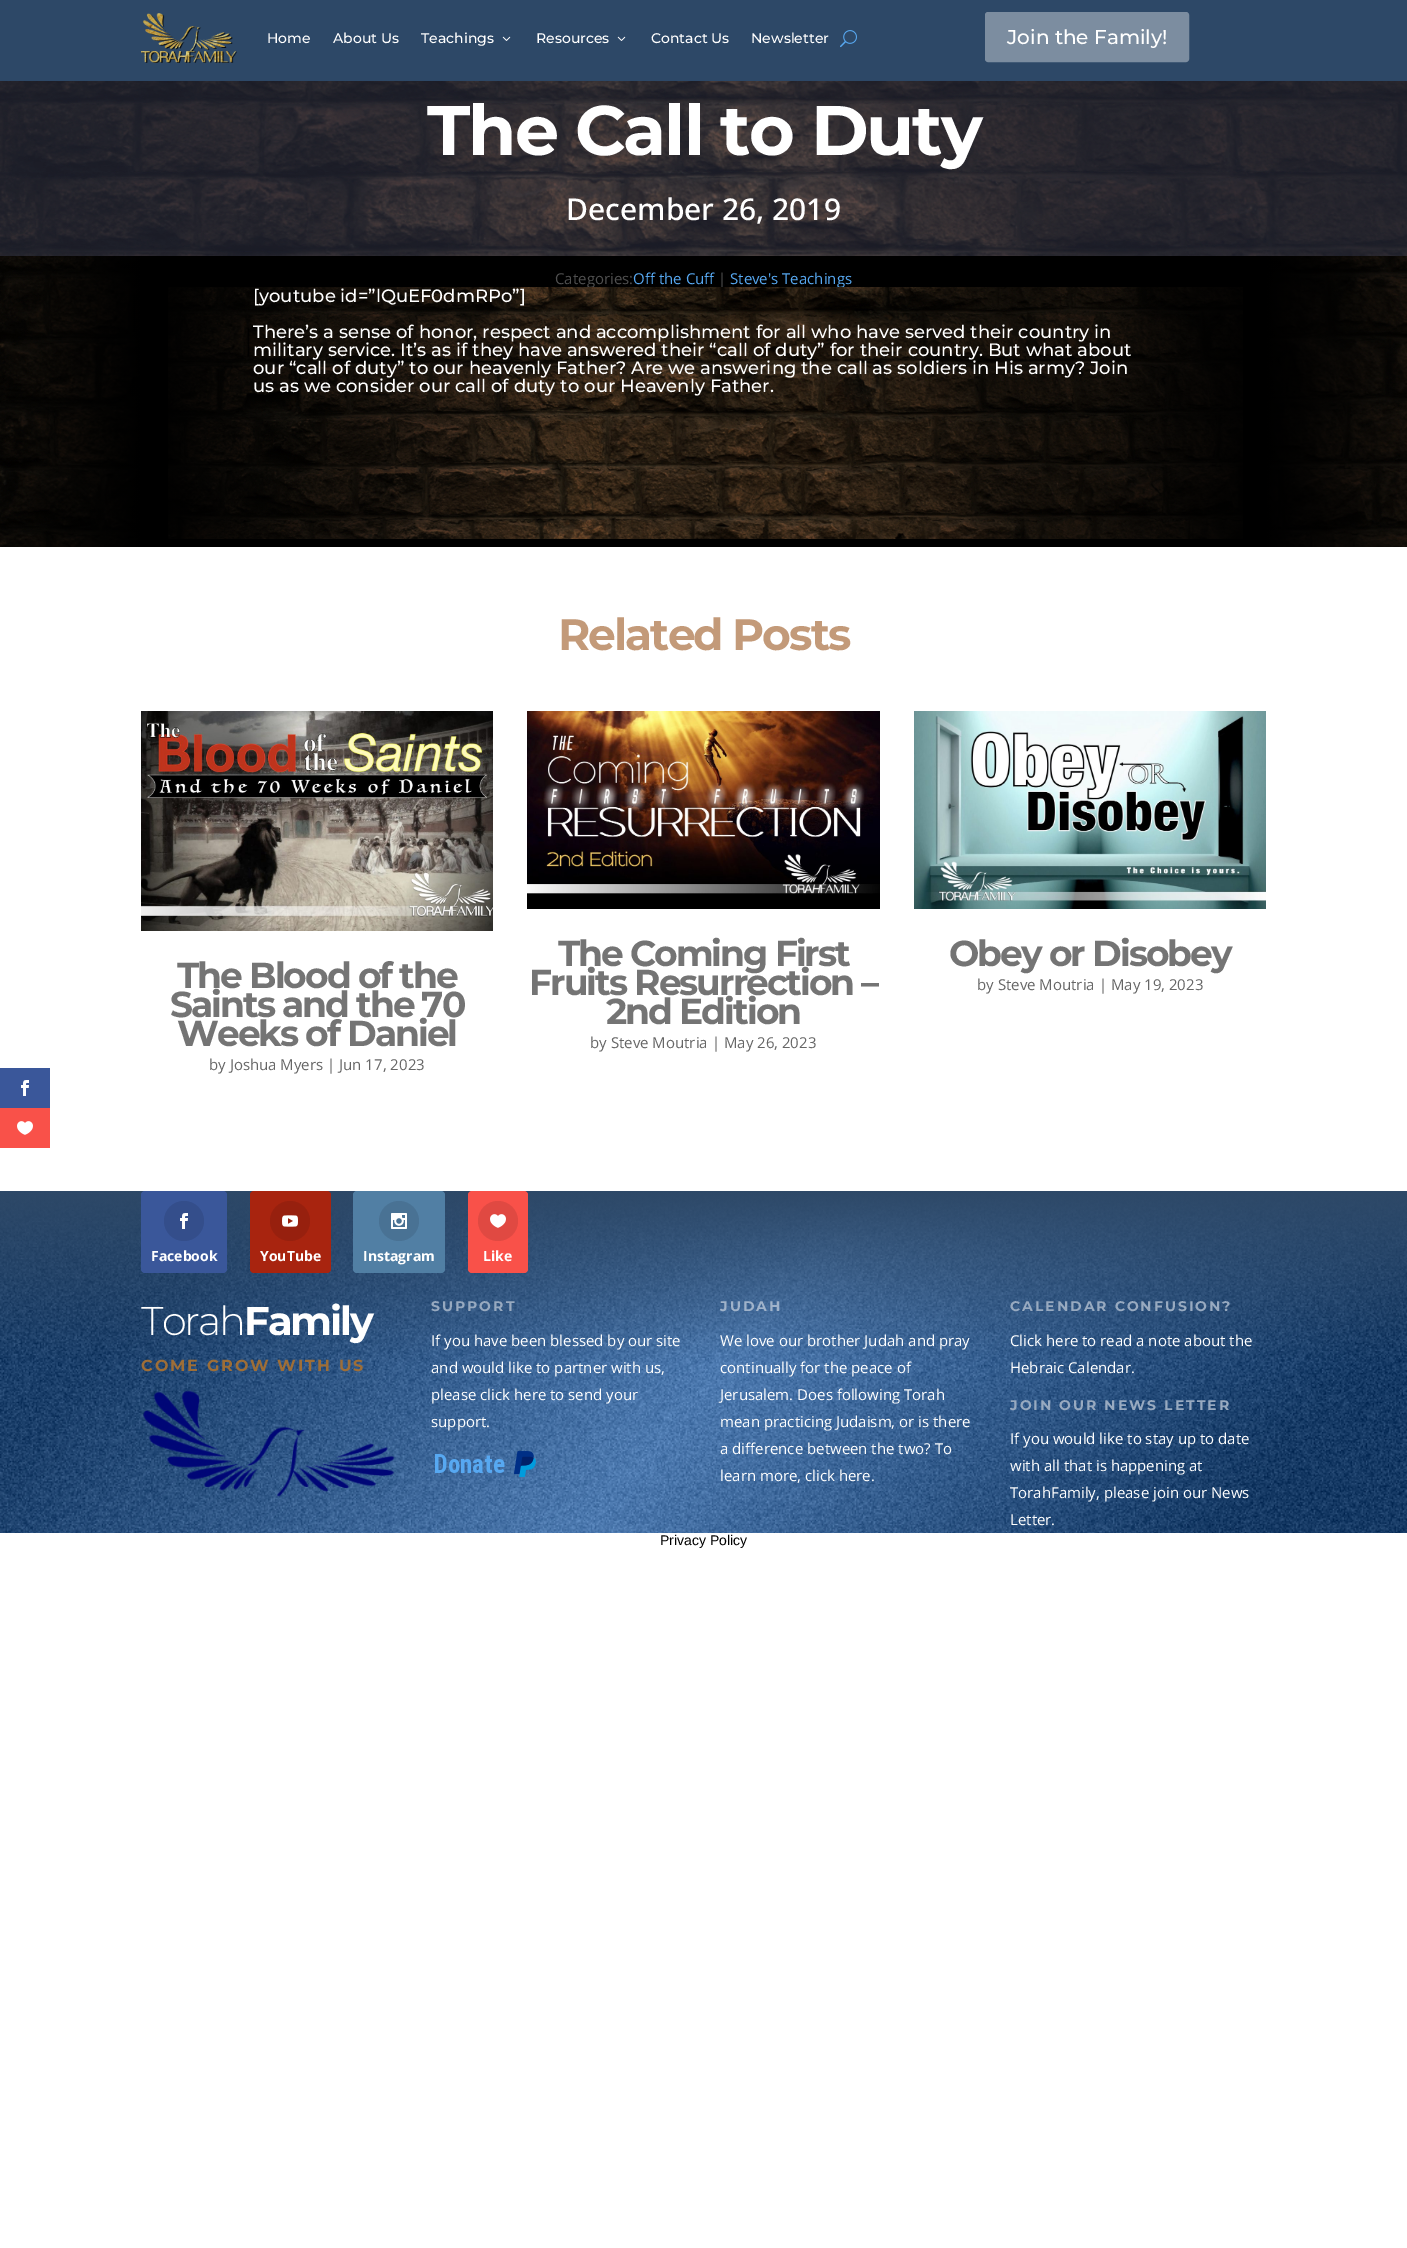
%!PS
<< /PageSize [1407 2248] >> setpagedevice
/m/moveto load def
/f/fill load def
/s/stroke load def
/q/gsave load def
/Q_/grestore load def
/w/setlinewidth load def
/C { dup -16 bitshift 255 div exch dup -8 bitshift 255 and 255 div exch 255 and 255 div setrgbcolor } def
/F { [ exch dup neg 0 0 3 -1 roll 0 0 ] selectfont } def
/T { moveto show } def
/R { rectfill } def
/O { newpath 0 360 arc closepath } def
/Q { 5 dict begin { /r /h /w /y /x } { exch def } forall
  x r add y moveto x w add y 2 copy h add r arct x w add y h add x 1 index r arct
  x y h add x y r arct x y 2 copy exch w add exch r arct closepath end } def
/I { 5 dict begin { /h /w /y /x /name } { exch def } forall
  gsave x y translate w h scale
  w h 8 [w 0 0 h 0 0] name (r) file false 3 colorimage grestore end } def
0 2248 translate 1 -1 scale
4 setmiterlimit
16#FFFFFF C
0 0 1407 2248 R
16#3A579A C
0 1068 50 40 R
(1.rgb) 21 1080 8 16 I
16#F95149 C
0 1108 50 40 R
(2.rgb) 17 1121 16 14 I
16#2D4867 C
0 0 1407 81 R
(3.rgb) 141 13 96 50 I
/Montserrat-Medium 14 F
16#FFFFFF C
(Home) 267 43 T
(About Us) 333 43 T
(Teachings) 421 43 T
(4.rgb) 502 36 9 5 I
(Resources) 536 43 T
(4.rgb) 617 36 9 5 I
(Contact Us) 651 43 T
(Newsletter) 751 43 T
(5.rgb) 840 30 17 18 I
16#7C8DA0 C
986 13 202 48 2 Q q f Q_
2 w
s
/Montserrat-Medium 20 F
16#FFFFFF C
(Join the Family!) 1007 44 T
(6.rgb) 0 81 1407 175 I
/Montserrat-Bold 70 F
427 155 m -2 0 (The Call to Duty) ashow
/NotoSans-Medium 30 F
(December 26, 2019) 566 220 T
(7.rgb) 0 256 1407 291 I
/OpenSans-Regular 15 F
16#4F4F4F C
(Categories:) 555 284 T
16#57A8F1 C
(Off the Cuff) 633 284 T
16#4F4F4F C
(|) 718 284 T
16#57A8F1 C
(Steve's Teachings) 730 284 T
(8.rgb) 168 287 1075 252 I
/Montserrat-Medium 18 F
16#FFFFFF C
([youtube id=”lQuEF0dmRPo”]) 253 302 T
(There’s a sense of honor, respect and accomplishment for all who have served their country in) 253 338 T
(military service. It’s as if they have answered their “call of duty” for their country. But what about) 253 356 T
(our “call of duty” to our heavenly Father? Are we answering the call as soldiers in His army? Join) 253 374 T
(us as we consider our call of duty to our Heavenly Father.) 253 392 T
/Montserrat-Bold 44 F
16#C39A79 C
558 650 m -2 0 (Related Posts) ashow
(9.rgb) 141 711 352 220 I
/Montserrat-Bold 36 F
16#747474 C
177 988 m -2 0 (The Blood of the) ashow
170 1017 m -2 0 (Saints and the 70) ashow
177 1046 m -2 0 (Weeks of Daniel) ashow
/OpenSans-Regular 15 F
16#666666 C
(by Joshua Myers | Jun 17, 2023) 209 1070 T
(10.rgb) 527 711 353 198 I
/Montserrat-Bold 36 F
16#747474 C
558 966 m -2 0 (The Coming First) ashow
529 995 m -2 0 (Fruits Resurrection –) ashow
606 1024 m -2 0 (2nd Edition) ashow
/OpenSans-Regular 15 F
16#666666 C
(by Steve Moutria | May 26, 2023) 590 1048 T
(11.rgb) 914 711 352 198 I
/Montserrat-Bold 36 F
16#747474 C
949 966 m -2 0 (Obey or Disobey) ashow
/OpenSans-Regular 15 F
16#666666 C
(by Steve Moutria | May 19, 2023) 977 990 T
(12.rgb) 0 1191 1407 342 I
16#3A579A C
141 1191 86 82 4 Q f
16#344E8B C
184 1221 20 O f
(13.rgb) 180 1213 8 16 I
/OpenSans-Bold 14 F
16#FFFFFF C
(Facebook) 151 1261 T
16#A8240F C
250 1191 81 82 4 Q f
16#97200E C
290 1221 20 O f
(14.rgb) 282 1215 16 12 I
16#FFFFFF C
(YouTube) 260 1261 T
16#517FA4 C
353 1191 92 82 4 Q f
16#497294 C
399 1221 20 O f
(15.rgb) 391 1213 16 16 I
16#FFFFFF C
(Instagram) 363 1261 T
16#F95149 C
468 1191 60 82 4 Q f
16#E04942 C
498 1221 20 O f
(16.rgb) 490 1214 16 14 I
16#FFFFFF C
(Like) 483 1261 T
/Montserrat-Light 40 F
141 1335 m -2 0 (Torah) ashow
/Montserrat-Bold 40 F
244 1335 m -2 0 (Family) ashow
/Montserrat-Bold 16 F
16#9E6E37 C
141 1371 m 2 0 (COME GROW WITH US) ashow
(17.rgb) 143 1390 252 107 I
/Montserrat-Bold 14 F
16#98AAC0 C
431 1311 m 2 0 (SUPPORT) ashow
/OpenSans-Regular 15 F
16#FFFFFF C
(If you have been blessed by our site) 431 1346 T
(and would like to partner with us,) 431 1373 T
(please click here to send your) 431 1400 T
(support.) 431 1427 T
(18.rgb) 435 1451 101 26 I
/Montserrat-Bold 14 F
16#A0B3CA C
720 1311 m 2 0 (JUDAH) ashow
/OpenSans-Regular 15 F
16#FFFFFF C
(We love our brother Judah and pray) 720 1346 T
(continually for the peace of) 720 1373 T
(Jerusalem. Does following Torah) 720 1400 T
(mean practicing Judaism, or is there) 720 1427 T
(a difference between the two? To) 720 1454 T
(learn more, click here.) 720 1481 T
/Montserrat-Bold 14 F
16#98AAC0 C
1010 1311 m 2 0 (CALENDAR CONFUSION?) ashow
/OpenSans-Regular 15 F
16#FFFFFF C
(Click here to read a note about the) 1010 1346 T
(Hebraic Calendar.) 1010 1373 T
/Montserrat-Bold 14 F
16#98AAC0 C
1010 1410 m 2 0 (JOIN OUR NEWS LETTER) ashow
/OpenSans-Regular 15 F
16#FFFFFF C
(If you would like to stay up to date) 1010 1444 T
(with all that is happening at) 1010 1471 T
(TorahFamily, please join our News) 1010 1498 T
(Letter.) 1010 1525 T
/LiberationSans-Regular 14 F
16#000000 C
(Privacy Policy) 660 1545 T
showpage
